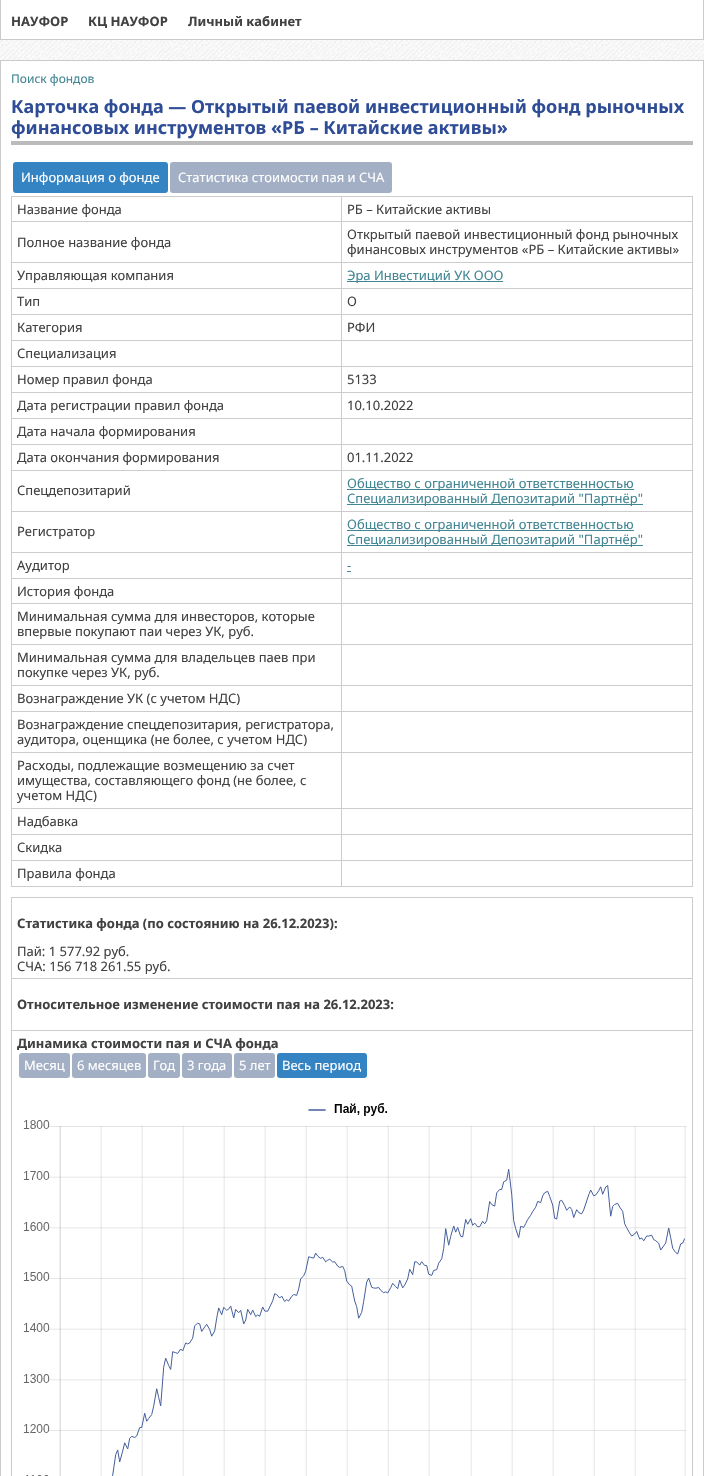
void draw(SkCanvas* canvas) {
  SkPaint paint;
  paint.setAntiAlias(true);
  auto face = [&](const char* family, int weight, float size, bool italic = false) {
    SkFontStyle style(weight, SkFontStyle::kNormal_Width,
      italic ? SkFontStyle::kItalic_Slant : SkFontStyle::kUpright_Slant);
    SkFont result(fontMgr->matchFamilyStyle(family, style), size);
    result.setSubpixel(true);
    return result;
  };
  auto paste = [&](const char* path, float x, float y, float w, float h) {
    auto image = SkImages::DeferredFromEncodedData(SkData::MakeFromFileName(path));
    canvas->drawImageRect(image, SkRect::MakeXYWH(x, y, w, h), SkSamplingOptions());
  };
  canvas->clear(0xffffffff);
  paste("img/1.png", 0, 40, 704, 20);
  paint.setStroke(true);
  paint.setStrokeWidth(1);
  paint.setColor(0xffcacaca);
  canvas->drawRect(SkRect::MakeXYWH(0.5f, -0.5f, 703, 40), paint);
  canvas->drawRect(SkRect::MakeXYWH(0.5f, 60.5f, 703, 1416), paint);
  paint.setStroke(false);
  paint.setColor(0xffbbbbbb);
  canvas->drawRect(SkRect::MakeXYWH(11, 141, 682, 4), paint);
  paint.setColor(0xff3483c3);
  canvas->drawRoundRect(SkRect::MakeXYWH(13, 162, 155, 31), 3, 3, paint);
  paint.setColor(0xffa2afc5);
  canvas->drawRoundRect(SkRect::MakeXYWH(170, 162, 222, 31), 3, 3, paint);
  {
    const struct { float x, y, w, h; SkColor color; } items[] = {
      {341, 196, 352, 1, 0xffcccccc},
      {341, 221, 352, 1, 0xffcccccc},
      {341, 262, 352, 1, 0xffcccccc},
      {341, 288, 352, 1, 0xffcccccc},
      {341, 314, 352, 1, 0xffcccccc},
      {341, 340, 352, 1, 0xffcccccc},
      {341, 366, 352, 1, 0xffcccccc},
      {341, 392, 352, 1, 0xffcccccc},
      {341, 418, 352, 1, 0xffcccccc},
      {341, 444, 352, 1, 0xffcccccc},
      {341, 470, 352, 1, 0xffcccccc},
      {341, 511, 352, 1, 0xffcccccc},
      {341, 552, 352, 1, 0xffcccccc},
      {341, 578, 352, 1, 0xffcccccc},
      {341, 603, 352, 1, 0xffcccccc},
      {341, 644, 352, 1, 0xffcccccc},
      {341, 685, 352, 1, 0xffcccccc},
      {341, 711, 352, 1, 0xffcccccc},
      {341, 752, 352, 1, 0xffcccccc},
      {341, 808, 352, 1, 0xffcccccc},
      {341, 834, 352, 1, 0xffcccccc},
      {341, 860, 352, 1, 0xffcccccc},
      {692, 860, 1, 27, 0xffcccccc},
      {341, 886, 352, 1, 0xffcccccc},
      {341, 860, 1, 27, 0xffcccccc},
      {11, 860, 331, 1, 0xffcccccc},
      {341, 834, 1, 27, 0xffcccccc},
      {11, 834, 331, 1, 0xffcccccc},
      {341, 808, 1, 27, 0xffcccccc},
      {11, 808, 331, 1, 0xffcccccc},
      {341, 752, 1, 57, 0xffcccccc},
      {11, 752, 331, 1, 0xffcccccc},
      {341, 711, 1, 42, 0xffcccccc},
      {11, 711, 331, 1, 0xffcccccc},
      {341, 685, 1, 27, 0xffcccccc},
      {11, 685, 331, 1, 0xffcccccc},
      {341, 644, 1, 42, 0xffcccccc},
      {11, 644, 331, 1, 0xffcccccc},
      {341, 603, 1, 42, 0xffcccccc},
      {11, 603, 331, 1, 0xffcccccc},
      {341, 578, 1, 26, 0xffcccccc},
      {11, 578, 331, 1, 0xffcccccc},
      {341, 552, 1, 27, 0xffcccccc},
      {11, 552, 331, 1, 0xffcccccc},
      {341, 511, 1, 42, 0xffcccccc},
      {11, 511, 331, 1, 0xffcccccc},
      {341, 470, 1, 42, 0xffcccccc},
      {11, 470, 331, 1, 0xffcccccc},
      {341, 444, 1, 27, 0xffcccccc},
      {11, 444, 331, 1, 0xffcccccc},
      {341, 418, 1, 27, 0xffcccccc},
      {11, 418, 331, 1, 0xffcccccc},
      {341, 392, 1, 27, 0xffcccccc},
      {11, 392, 331, 1, 0xffcccccc},
      {341, 366, 1, 27, 0xffcccccc},
      {11, 366, 331, 1, 0xffcccccc},
      {341, 340, 1, 27, 0xffcccccc},
      {11, 340, 331, 1, 0xffcccccc},
      {341, 314, 1, 27, 0xffcccccc},
      {11, 314, 331, 1, 0xffcccccc},
      {341, 288, 1, 27, 0xffcccccc},
      {11, 288, 331, 1, 0xffcccccc},
      {341, 262, 1, 27, 0xffcccccc},
      {11, 262, 331, 1, 0xffcccccc},
      {341, 221, 1, 42, 0xffcccccc},
      {11, 221, 331, 1, 0xffcccccc},
      {341, 196, 1, 26, 0xffcccccc},
      {11, 196, 331, 1, 0xffcccccc},
      {11, 886, 331, 1, 0xffcccccc},
      {11, 860, 1, 27, 0xffcccccc},
      {11, 834, 1, 27, 0xffcccccc},
      {11, 808, 1, 27, 0xffcccccc},
      {11, 752, 1, 57, 0xffcccccc},
      {11, 711, 1, 42, 0xffcccccc},
      {11, 685, 1, 27, 0xffcccccc},
      {11, 644, 1, 42, 0xffcccccc},
      {11, 603, 1, 42, 0xffcccccc},
      {11, 578, 1, 26, 0xffcccccc},
      {11, 552, 1, 27, 0xffcccccc},
      {11, 511, 1, 42, 0xffcccccc},
      {11, 470, 1, 42, 0xffcccccc},
      {11, 444, 1, 27, 0xffcccccc},
      {11, 418, 1, 27, 0xffcccccc},
      {11, 392, 1, 27, 0xffcccccc},
      {11, 366, 1, 27, 0xffcccccc},
      {11, 340, 1, 27, 0xffcccccc},
      {11, 314, 1, 27, 0xffcccccc},
      {11, 288, 1, 27, 0xffcccccc},
      {11, 262, 1, 27, 0xffcccccc},
      {11, 221, 1, 42, 0xffcccccc},
      {11, 196, 1, 26, 0xffcccccc},
      {692, 834, 1, 27, 0xffcccccc},
      {692, 808, 1, 27, 0xffcccccc},
      {692, 752, 1, 57, 0xffcccccc},
      {692, 711, 1, 42, 0xffcccccc},
      {692, 685, 1, 27, 0xffcccccc},
      {692, 644, 1, 42, 0xffcccccc},
      {692, 603, 1, 42, 0xffcccccc},
      {692, 578, 1, 26, 0xffcccccc},
      {692, 552, 1, 27, 0xffcccccc},
      {692, 511, 1, 42, 0xffcccccc},
      {692, 470, 1, 42, 0xffcccccc},
      {692, 444, 1, 27, 0xffcccccc},
      {692, 418, 1, 27, 0xffcccccc},
      {692, 392, 1, 27, 0xffcccccc},
      {692, 366, 1, 27, 0xffcccccc},
      {692, 340, 1, 27, 0xffcccccc},
      {692, 314, 1, 27, 0xffcccccc},
      {692, 288, 1, 27, 0xffcccccc},
      {692, 262, 1, 27, 0xffcccccc},
      {692, 221, 1, 42, 0xffcccccc},
      {692, 196, 1, 26, 0xffcccccc},
      {347, 281, 156, 1, 0xff428693},
      {347, 489, 287, 1, 0xff428693},
      {347, 504, 296, 1, 0xff428693},
      {347, 530, 287, 1, 0xff428693},
      {347, 545, 296, 1, 0xff428693},
      {347, 571, 4, 1, 0xff428693},
      {11, 897, 682, 1, 0xffcccccc},
      {11, 978, 682, 1, 0xffcccccc},
      {11, 1030, 682, 1, 0xffcccccc},
      {692, 1030, 1, 446, 0xffcccccc},
      {692, 978, 1, 53, 0xffcccccc},
      {692, 897, 1, 82, 0xffcccccc},
      {11, 1030, 1, 446, 0xffcccccc},
      {11, 978, 1, 53, 0xffcccccc},
      {11, 897, 1, 82, 0xffcccccc},
    };
    for (auto [x, y, w, h, color] : items) {
      paint.setColor(color);
      canvas->drawRect(SkRect::MakeXYWH(x, y, w, h), paint);
    }
  }
  paint.setColor(0xffa2afc5);
  canvas->drawRoundRect(SkRect::MakeXYWH(19, 1053, 51, 25), 3, 3, paint);
  canvas->drawRoundRect(SkRect::MakeXYWH(72, 1053, 74, 25), 3, 3, paint);
  canvas->drawRoundRect(SkRect::MakeXYWH(148, 1053, 32, 25), 3, 3, paint);
  canvas->drawRoundRect(SkRect::MakeXYWH(182, 1053, 50, 25), 3, 3, paint);
  canvas->drawRoundRect(SkRect::MakeXYWH(234, 1053, 41, 25), 3, 3, paint);
  paint.setColor(0xff3483c3);
  canvas->drawRoundRect(SkRect::MakeXYWH(277, 1053, 90, 25), 3, 3, paint);
  paste("img/2.png", 23, 1103, 663, 373);
  auto f0 = face("Noto Sans", 700, 13);
  paint.setColor(0xff414141);
  {
    const struct { const char* s; float x, y; } items[] = {
      {"НАУФОР", 11, 26},
      {"КЦ НАУФОР", 88, 26},
      {"Личный кабинет", 188, 26},
    };
    for (auto [s, x, y] : items) {
      canvas->drawString(s, x, y, f0, paint);
    }
  }
  auto f1 = face("Noto Sans", 400, 12);
  paint.setColor(0xff428693);
  canvas->drawString("Поиск фондов", 11, 83, f1, paint);
  auto f2 = face("Noto Sans", 700, 18);
  paint.setColor(0xff2f4d96);
  canvas->drawString("Карточка фонда — Открытый паевой инвестиционный фонд рыночных", 11, 113, f2, paint);
  canvas->drawString("финансовых инструментов «РБ – Китайские активы»", 11, 134, f2, paint);
  auto f3 = face("Noto Sans", 400, 13);
  paint.setColor(0xffffffff);
  canvas->drawString("Информация о фонде", 21, 182, f3, paint);
  canvas->drawString("Статистика стоимости пая и СЧА", 178, 182, f3, paint);
  paint.setColor(0xff414141);
  {
    const struct { const char* s; float x, y; } items[] = {
      {"Название фонда", 17, 214},
      {"РБ – Китайские активы", 347, 214},
      {"Полное название фонда", 17, 247},
      {"Открытый паевой инвестиционный фонд рыночных", 347, 239},
      {"финансовых инструментов «РБ – Китайские активы»", 347, 254},
      {"Управляющая компания", 17, 280},
    };
    for (auto [s, x, y] : items) {
      canvas->drawString(s, x, y, f3, paint);
    }
  }
  paint.setColor(0xff428693);
  canvas->drawString("Эра Инвестиций УК ООО", 347, 280, f3, paint);
  paint.setColor(0xff414141);
  {
    const struct { const char* s; float x, y; } items[] = {
      {"Тип", 17, 306},
      {"О", 347, 306},
      {"Категория", 17, 332},
      {"РФИ", 347, 332},
      {"Специализация", 17, 358},
      {"Номер правил фонда", 17, 384},
      {"5133", 347, 384},
      {"Дата регистрации правил фонда", 17, 410},
      {"10.10.2022", 347, 410},
      {"Дата начала формирования", 17, 436},
      {"Дата окончания формирования", 17, 462},
      {"01.11.2022", 347, 462},
      {"Спецдепозитарий", 17, 495},
    };
    for (auto [s, x, y] : items) {
      canvas->drawString(s, x, y, f3, paint);
    }
  }
  paint.setColor(0xff428693);
  canvas->drawString("Общество с ограниченной ответственностью", 347, 488, f3, paint);
  canvas->drawString("Специализированный Депозитарий \"Партнёр\"", 347, 503, f3, paint);
  paint.setColor(0xff414141);
  canvas->drawString("Регистратор", 17, 536, f3, paint);
  paint.setColor(0xff428693);
  canvas->drawString("Общество с ограниченной ответственностью", 347, 529, f3, paint);
  canvas->drawString("Специализированный Депозитарий \"Партнёр\"", 347, 544, f3, paint);
  paint.setColor(0xff414141);
  canvas->drawString("Аудитор", 17, 570, f3, paint);
  paint.setColor(0xff428693);
  canvas->drawString("-", 347, 570, f3, paint);
  paint.setColor(0xff414141);
  {
    const struct { const char* s; float x, y; } items[] = {
      {"История фонда", 17, 596},
      {"Минимальная сумма для инвесторов, которые", 17, 621},
      {"впервые покупают паи через УК, руб.", 17, 636},
      {"Минимальная сумма для владельцев паев при", 17, 662},
      {"покупке через УК, руб.", 17, 677},
      {"Вознаграждение УК (с учетом НДС)", 17, 703},
      {"Вознаграждение спецдепозитария, регистратора,", 17, 729},
      {"аудитора, оценщика (не более, с учетом НДС)", 17, 744},
      {"Расходы, подлежащие возмещению за счет", 17, 770},
      {"имущества, составляющего фонд (не более, с", 17, 785},
      {"учетом НДС)", 17, 800},
      {"Надбавка", 17, 826},
      {"Скидка", 17, 852},
      {"Правила фонда", 17, 878},
    };
    for (auto [s, x, y] : items) {
      canvas->drawString(s, x, y, f3, paint);
    }
  }
  canvas->drawString("Статистика фонда (по состоянию на 26.12.2023):", 17, 928, f0, paint);
  canvas->drawString("Пай: 1 577.92 руб.", 17, 956, f3, paint);
  canvas->drawString("СЧА: 156 718 261.55 руб.", 17, 971, f3, paint);
  canvas->drawString("Относительное изменение стоимости пая на 26.12.2023:", 17, 1009, f0, paint);
  canvas->drawString("Динамика стоимости пая и СЧА фонда", 17, 1048, f0, paint);
  paint.setColor(0xffffffff);
  {
    const struct { const char* s; float x, y; } items[] = {
      {"Месяц", 24, 1070},
      {"6 месяцев", 77, 1070},
      {"Год", 153, 1070},
      {"3 года", 187, 1070},
      {"5 лет", 239, 1070},
      {"Весь период", 282, 1070},
    };
    for (auto [s, x, y] : items) {
      canvas->drawString(s, x, y, f3, paint);
    }
  }
}
